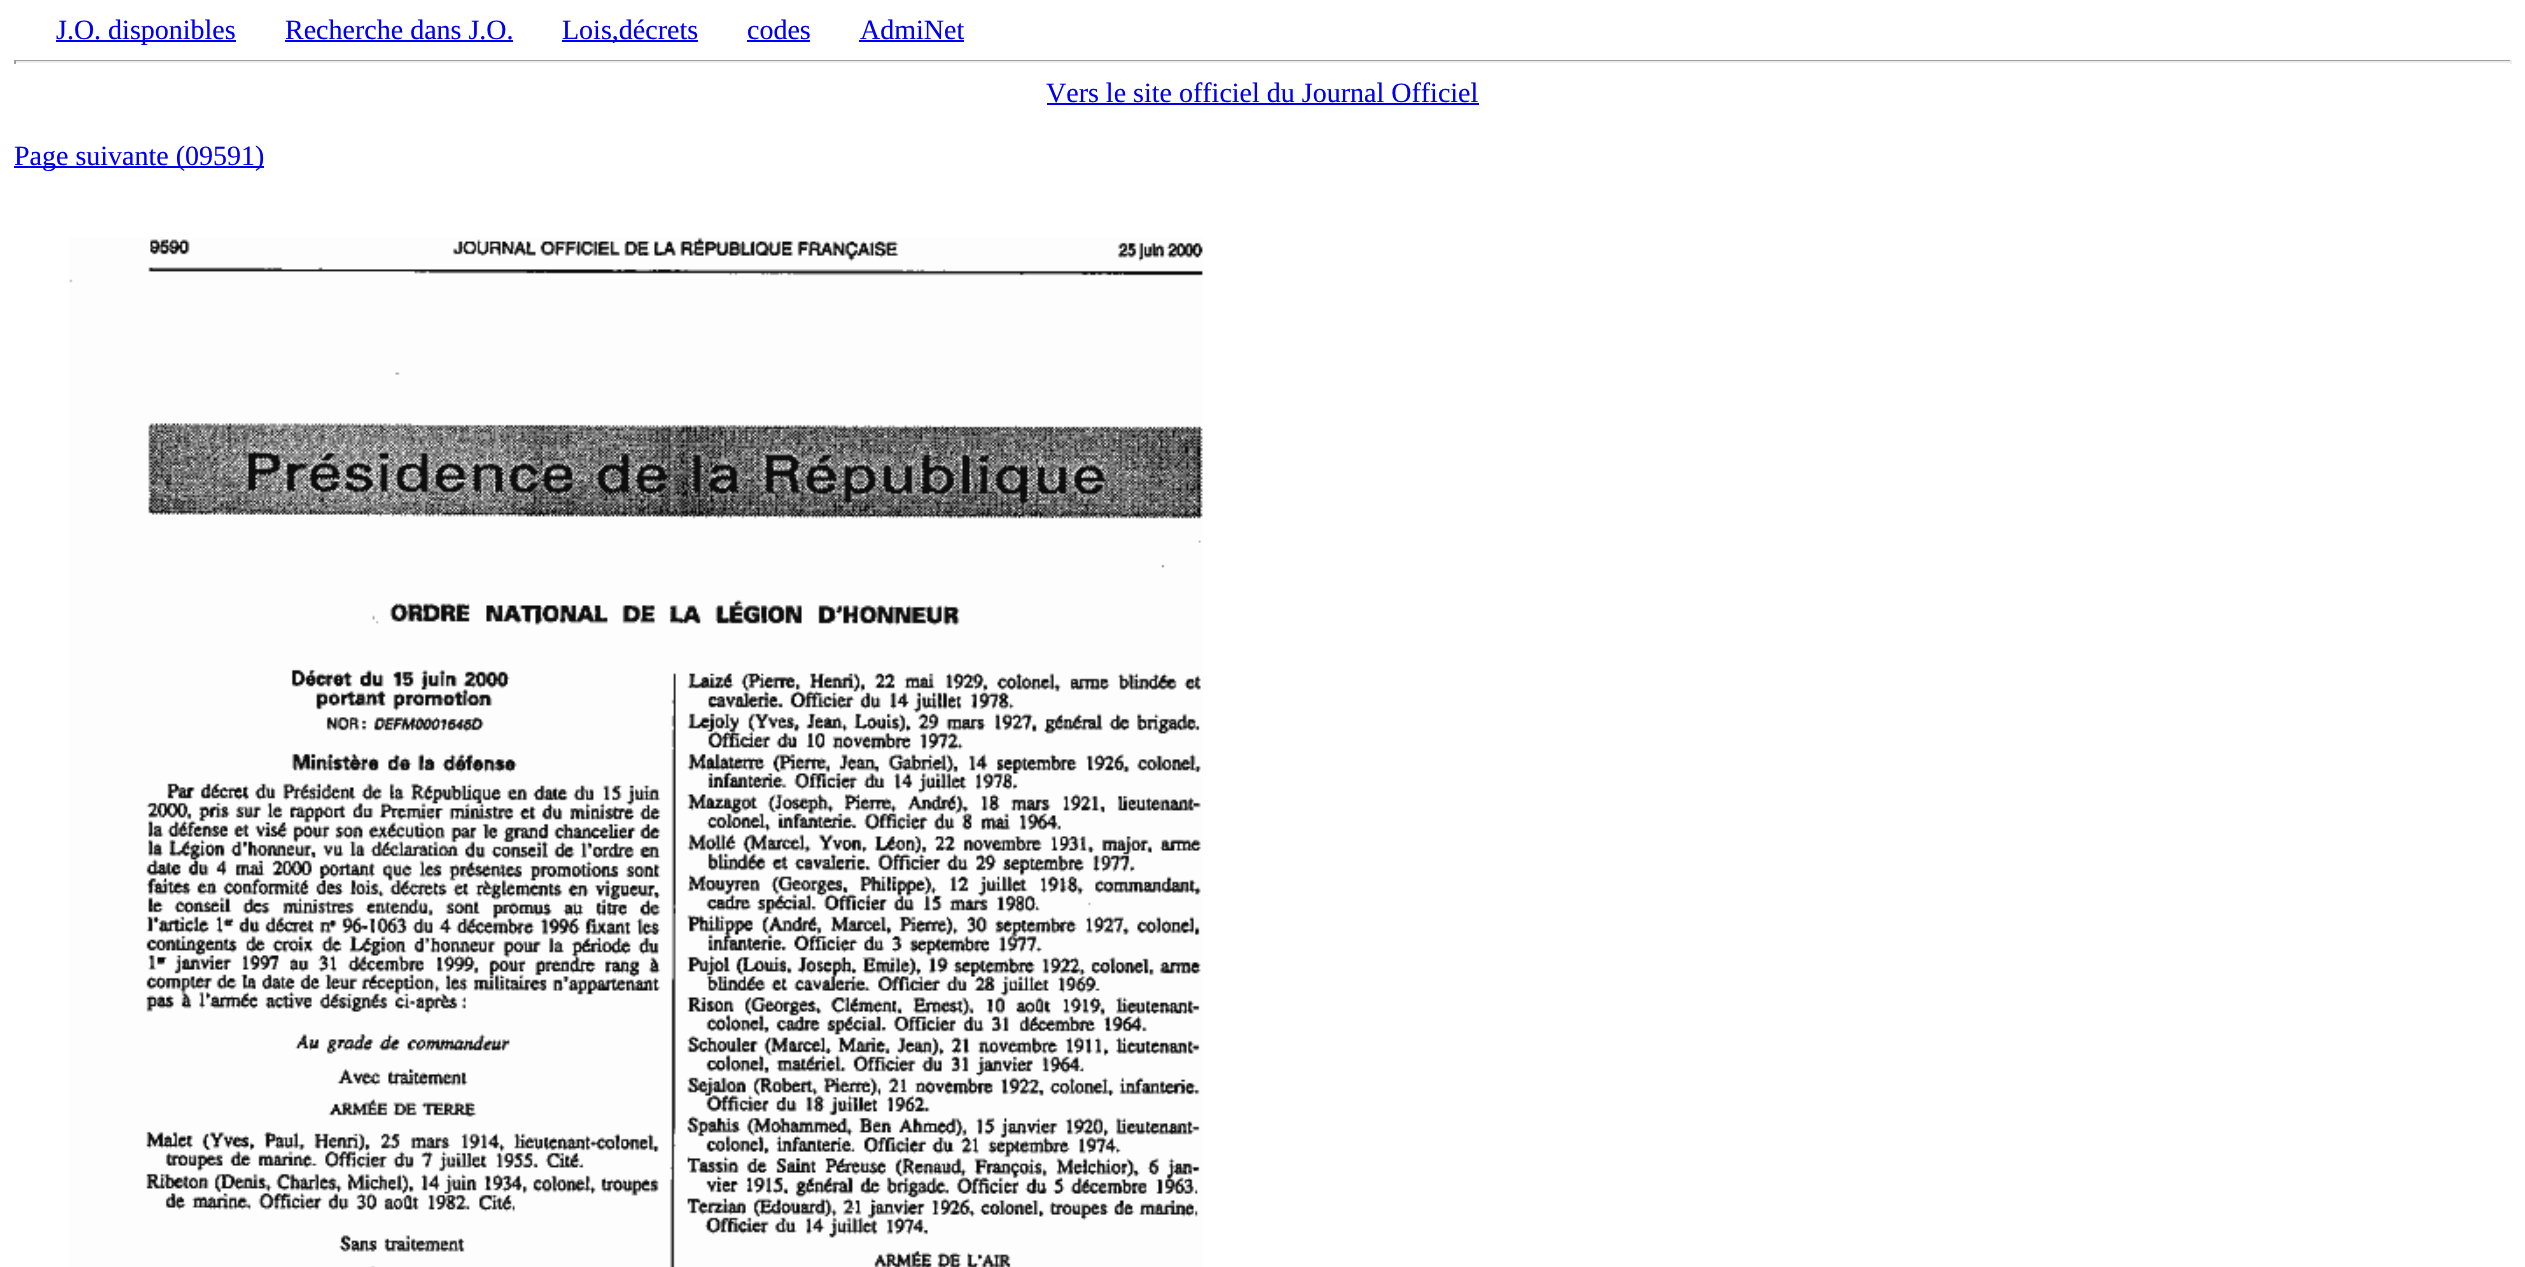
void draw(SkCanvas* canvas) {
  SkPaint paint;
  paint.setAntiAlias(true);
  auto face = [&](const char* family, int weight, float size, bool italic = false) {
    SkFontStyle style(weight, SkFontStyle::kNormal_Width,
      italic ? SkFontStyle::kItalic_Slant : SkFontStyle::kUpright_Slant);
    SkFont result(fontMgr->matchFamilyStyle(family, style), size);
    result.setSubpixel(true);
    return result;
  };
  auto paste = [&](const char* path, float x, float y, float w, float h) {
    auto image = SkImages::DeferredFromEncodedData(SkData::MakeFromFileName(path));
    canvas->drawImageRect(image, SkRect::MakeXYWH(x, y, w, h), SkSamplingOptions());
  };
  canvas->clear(0xffffffff);
  {
    const struct { float x, y, w, h; SkColor color; } items[] = {
      {56, 40, 180, 2, 0xff0000ee},
      {285, 40, 228, 2, 0xff0000ee},
      {562, 40, 136, 2, 0xff0000ee},
      {747, 40, 63, 2, 0xff0000ee},
      {859, 40, 105, 2, 0xff0000ee},
      {14, 60, 2497, 1, 0xff9f9f9f},
      {2510, 60, 2, 4, 0xffeeeeee},
      {14, 61, 2497, 2, 0xffeeeeee},
      {14, 60, 2, 4, 0xff9f9f9f},
      {1047, 103, 432, 2, 0xff0000ee},
      {14, 166, 250, 2, 0xff0000ee},
    };
    for (auto [x, y, w, h, color] : items) {
      paint.setColor(color);
      canvas->drawRect(SkRect::MakeXYWH(x, y, w, h), paint);
    }
  }
  paste("img/1.png", 69, 237, 1134, 1030);
  auto f0 = face("Liberation Serif", 400, 28);
  {
    const struct { const char* s; float x, y; } items[] = {
      {"J.O. disponibles", 56, 39},
      {"Recherche dans J.O.", 285, 39},
      {"Lois,décrets", 562, 39},
      {"codes", 747, 39},
      {"AdmiNet", 860, 39},
      {"Vers le site officiel du Journal Officiel", 1046, 102},
      {"Page suivante (09591)", 14, 165},
    };
    for (auto [s, x, y] : items) {
      canvas->drawString(s, x, y, f0, paint);
    }
  }
}
